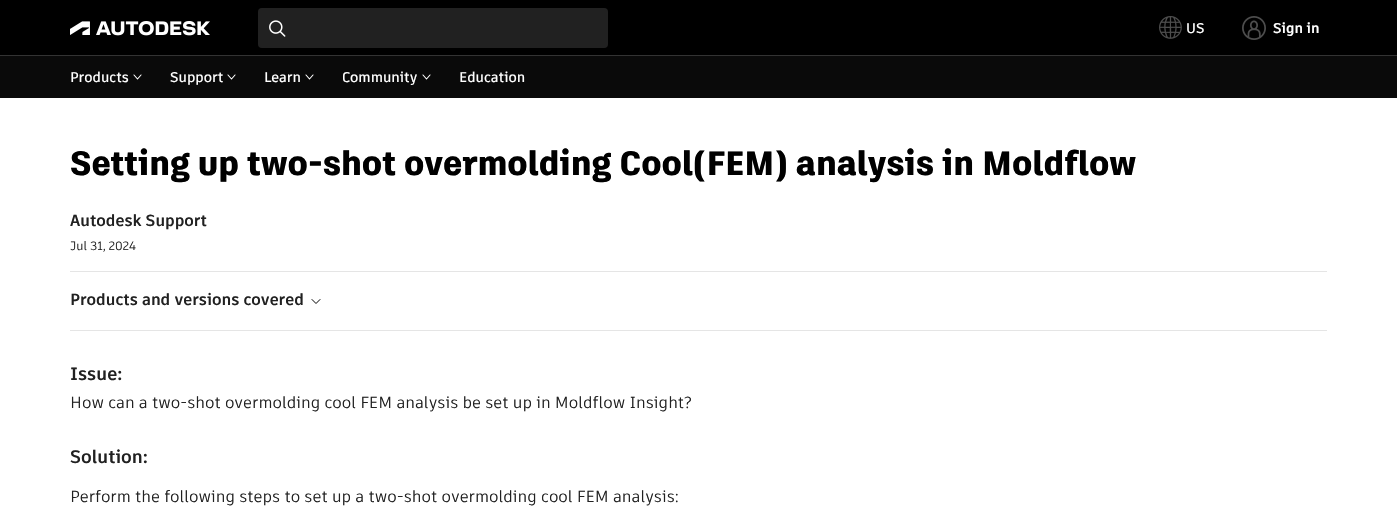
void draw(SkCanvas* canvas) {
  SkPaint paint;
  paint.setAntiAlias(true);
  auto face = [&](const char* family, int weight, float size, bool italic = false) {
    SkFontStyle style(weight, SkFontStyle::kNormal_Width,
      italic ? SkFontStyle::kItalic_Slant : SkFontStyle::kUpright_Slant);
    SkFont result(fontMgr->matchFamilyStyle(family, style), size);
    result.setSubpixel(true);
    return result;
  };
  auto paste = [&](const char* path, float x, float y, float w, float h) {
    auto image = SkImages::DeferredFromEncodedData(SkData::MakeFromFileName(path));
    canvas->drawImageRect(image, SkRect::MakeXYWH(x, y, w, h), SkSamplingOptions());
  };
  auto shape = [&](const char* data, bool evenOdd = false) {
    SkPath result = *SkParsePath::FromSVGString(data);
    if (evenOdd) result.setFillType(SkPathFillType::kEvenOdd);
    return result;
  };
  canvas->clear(0xffffffff);
  paint.setColor(0xff000000);
  canvas->drawRect(SkRect::MakeXYWH(0, 0, 1397, 55), paint);
  paint.setColor(0xff0a0a0a);
  canvas->drawRect(SkRect::MakeXYWH(0, 56, 1397, 42), paint);
  paste("img/1.png", 70, 21, 140, 15);
  paint.setColor(0xff212121);
  canvas->drawRoundRect(SkRect::MakeXYWH(258, 8, 350, 40), 4, 4, paint);
  paste("img/2.png", 269, 20, 17, 17);
  paste("img/3.png", 1159, 16, 23, 23);
  paste("img/4.png", 1242, 16, 24, 24);
  paint.setColor(0xff333333);
  canvas->drawRect(SkRect::MakeXYWH(0, 55, 1397, 1), paint);
  paint.setStroke(true);
  paint.setStrokeWidth(1.1f);
  paint.setStrokeCap(SkPaint::kRound_Cap);
  paint.setStrokeJoin(SkPaint::kRound_Join);
  paint.setColor(0xffffffff);
  canvas->drawPath(shape("M141 75L137.5 79L134 75"), paint);
  canvas->drawPath(shape("M235 75L231.5 79L228 75"), paint);
  canvas->drawPath(shape("M313 75L309.5 79L306 75"), paint);
  canvas->drawPath(shape("M430 75L426.5 79L423 75"), paint);
  paint.setStroke(false);
  paint.setColor(0xffe5e5e5);
  canvas->drawRect(SkRect::MakeXYWH(70, 271, 1257, 1), paint);
  paint.setStroke(true);
  paint.setStrokeWidth(1);
  paint.setColor(0xff000000);
  canvas->drawPath(shape("M320 299.5L316 303.5L312 299.5"), paint);
  paint.setStroke(false);
  paint.setColor(0xffe5e5e5);
  canvas->drawRect(SkRect::MakeXYWH(70, 330, 1257, 1), paint);
  auto f0 = face("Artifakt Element", 600, 14);
  paint.setColor(0xffffffff);
  canvas->drawString("US", 1186, 33, f0, paint);
  auto f1 = face("Artifakt Element", 700, 14);
  canvas->drawString("Sign in", 1273, 33, f1, paint);
  {
    const struct { const char* s; float x, y; } items[] = {
      {"Products", 70, 82},
      {"Support", 170, 82},
      {"Learn", 264, 82},
      {"Community", 342, 82},
      {"Education", 459, 82},
    };
    for (auto [s, x, y] : items) {
      canvas->drawString(s, x, y, f0, paint);
    }
  }
  auto f2 = face("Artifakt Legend", 800, 33.6f);
  paint.setColor(0xff000000);
  canvas->drawString("Setting up two-shot overmolding Cool(FEM) analysis in Moldflow", 70, 175, f2, paint);
  auto f3 = face("Artifakt Element", 700, 16);
  paint.setColor(0xff212121);
  canvas->drawString("Autodesk Support", 70, 226, f3, paint);
  auto f4 = face("Artifakt Element", 400, 12);
  canvas->drawString("Jul 31, 2024", 70, 250, f4, paint);
  canvas->drawString("Products and versions covered", 70, 305, f3, paint);
  auto f5 = face("Artifakt Element", 700, 18);
  canvas->drawString("Issue:", 70, 380, f5, paint);
  auto f6 = face("Artifakt Element", 400, 16);
  canvas->drawString("How can a two-shot overmolding cool FEM analysis be set up in Moldflow Insight?", 70, 408, f6, paint);
  canvas->drawString("Solution:", 70, 463, f5, paint);
  canvas->drawString("Perform the following steps to set up a two-shot overmolding cool FEM analysis:", 70, 502, f6, paint);
}
